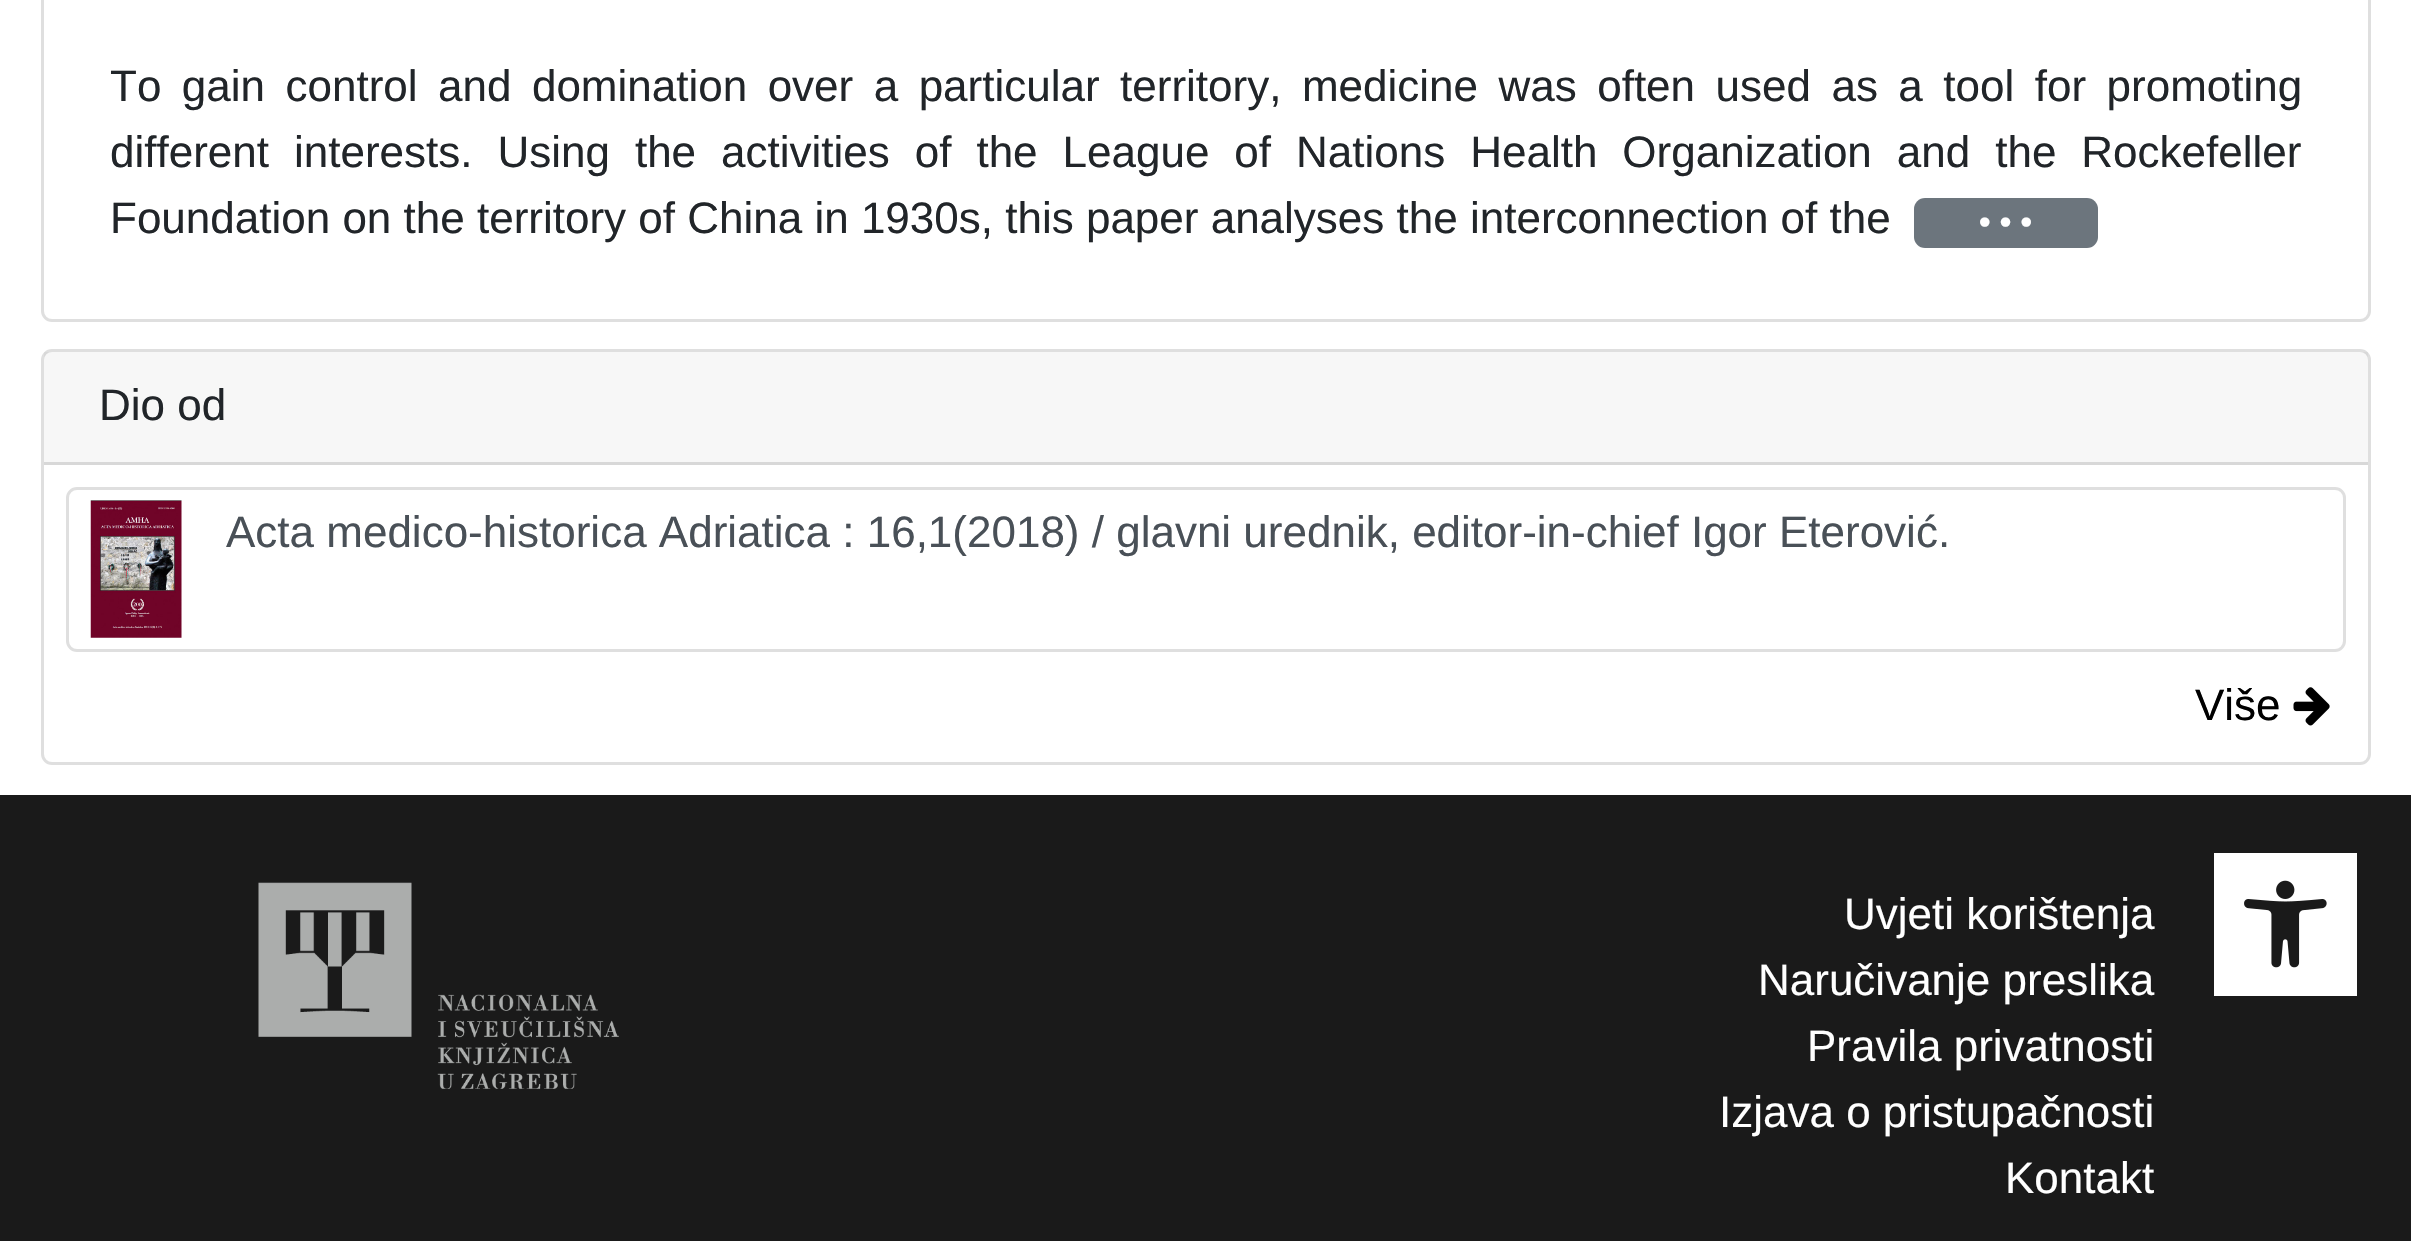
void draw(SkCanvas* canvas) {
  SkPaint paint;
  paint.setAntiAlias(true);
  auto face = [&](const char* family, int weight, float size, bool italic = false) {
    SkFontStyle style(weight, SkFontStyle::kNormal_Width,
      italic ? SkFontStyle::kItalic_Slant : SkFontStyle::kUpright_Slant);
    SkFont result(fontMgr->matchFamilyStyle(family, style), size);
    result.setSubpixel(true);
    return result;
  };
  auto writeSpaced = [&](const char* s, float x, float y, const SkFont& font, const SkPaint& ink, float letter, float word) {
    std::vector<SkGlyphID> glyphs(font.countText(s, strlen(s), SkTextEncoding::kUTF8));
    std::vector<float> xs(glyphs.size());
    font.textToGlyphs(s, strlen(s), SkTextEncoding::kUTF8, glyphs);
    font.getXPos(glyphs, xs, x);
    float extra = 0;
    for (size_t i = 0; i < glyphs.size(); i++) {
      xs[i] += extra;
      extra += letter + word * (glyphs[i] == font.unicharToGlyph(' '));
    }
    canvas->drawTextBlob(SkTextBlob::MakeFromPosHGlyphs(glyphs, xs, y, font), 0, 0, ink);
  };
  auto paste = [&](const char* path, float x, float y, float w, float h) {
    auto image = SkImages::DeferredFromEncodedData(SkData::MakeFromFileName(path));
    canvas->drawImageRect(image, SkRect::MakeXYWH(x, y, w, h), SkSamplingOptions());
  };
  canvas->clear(0xffffffff);
  paint.setStroke(true);
  paint.setStrokeWidth(3);
  paint.setColor(0xffdfdfdf);
  canvas->drawRoundRect(SkRect::MakeXYWH(42.5f, -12.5f, 2327, 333), 9.5f, 9.5f, paint);
  paint.setStroke(false);
  paint.setColor(0xff6c757d);
  canvas->drawRoundRect(SkRect::MakeXYWH(1914, 198, 184, 50), 11, 11, paint);
  paint.setStroke(true);
  paint.setColor(0xffdfdfdf);
  canvas->drawRoundRect(SkRect::MakeXYWH(42.5f, 350.5f, 2327, 413), 9.5f, 9.5f, paint);
  paint.setStroke(false);
  paint.setColor(0x08000000);
  canvas->drawRect(SkRect::MakeXYWH(44, 352, 2324, 110), paint);
  paint.setColor(0xffd8d8d8);
  canvas->drawRect(SkRect::MakeXYWH(44, 462, 2324, 3), paint);
  paint.setStroke(true);
  paint.setColor(0xffdfdfdf);
  canvas->drawRoundRect(SkRect::MakeXYWH(67.5f, 488.5f, 2277, 162), 9.5f, 9.5f, paint);
  paste("img/1.png", 90, 500, 92, 138);
  paste("img/2.png", 2293, 687, 37, 39);
  paint.setStroke(false);
  paint.setColor(0xff1a1a1a);
  canvas->drawRect(SkRect::MakeXYWH(0, 795, 2411, 446), paint);
  paste("img/3.png", 258, 882, 361, 207);
  paint.setColor(0xffffffff);
  canvas->drawRect(SkRect::MakeXYWH(2214, 853, 143, 143), paint);
  paste("img/4.png", 2244, 880, 83, 88);
  auto f0 = face("Liberation Sans", 400, 44);
  paint.setColor(0xff212529);
  writeSpaced("To gain control and domination over a particular territory, medicine was often used as a tool for promoting", 110, 101, f0, paint, 0, 8.25f);
  writeSpaced("different interests. Using the activities of the League of Nations Health Organization and the Rockefeller", 110, 167, f0, paint, 0, 12.75f);
  canvas->drawString("Foundation on the territory of China in 1930s, this paper analyses the interconnection of the", 110, 233, f0, paint);
  auto f1 = face("Liberation Sans", 700, 33);
  paint.setColor(0xffffffff);
  canvas->drawString("• • •", 1979, 233, f1, paint);
  paint.setColor(0xff212529);
  canvas->drawString("Dio od", 99, 420, f0, paint);
  paint.setColor(0xff495057);
  canvas->drawString("Acta medico-historica Adriatica : 16,1(2018) / glavni urednik, editor-in-chief Igor Eterović.", 226, 547, f0, paint);
  paint.setColor(0xff000000);
  canvas->drawString("Više", 2195, 720, f0, paint);
  paint.setColor(0xffffffff);
  {
    const struct { const char* s; float x, y; } items[] = {
      {"Uvjeti korištenja", 1844, 929},
      {"Naručivanje preslika", 1758, 995},
      {"Pravila privatnosti", 1807, 1061},
      {"Izjava o pristupačnosti", 1719, 1127},
      {"Kontakt", 2005, 1193},
    };
    for (auto [s, x, y] : items) {
      canvas->drawString(s, x, y, f0, paint);
    }
  }
}
